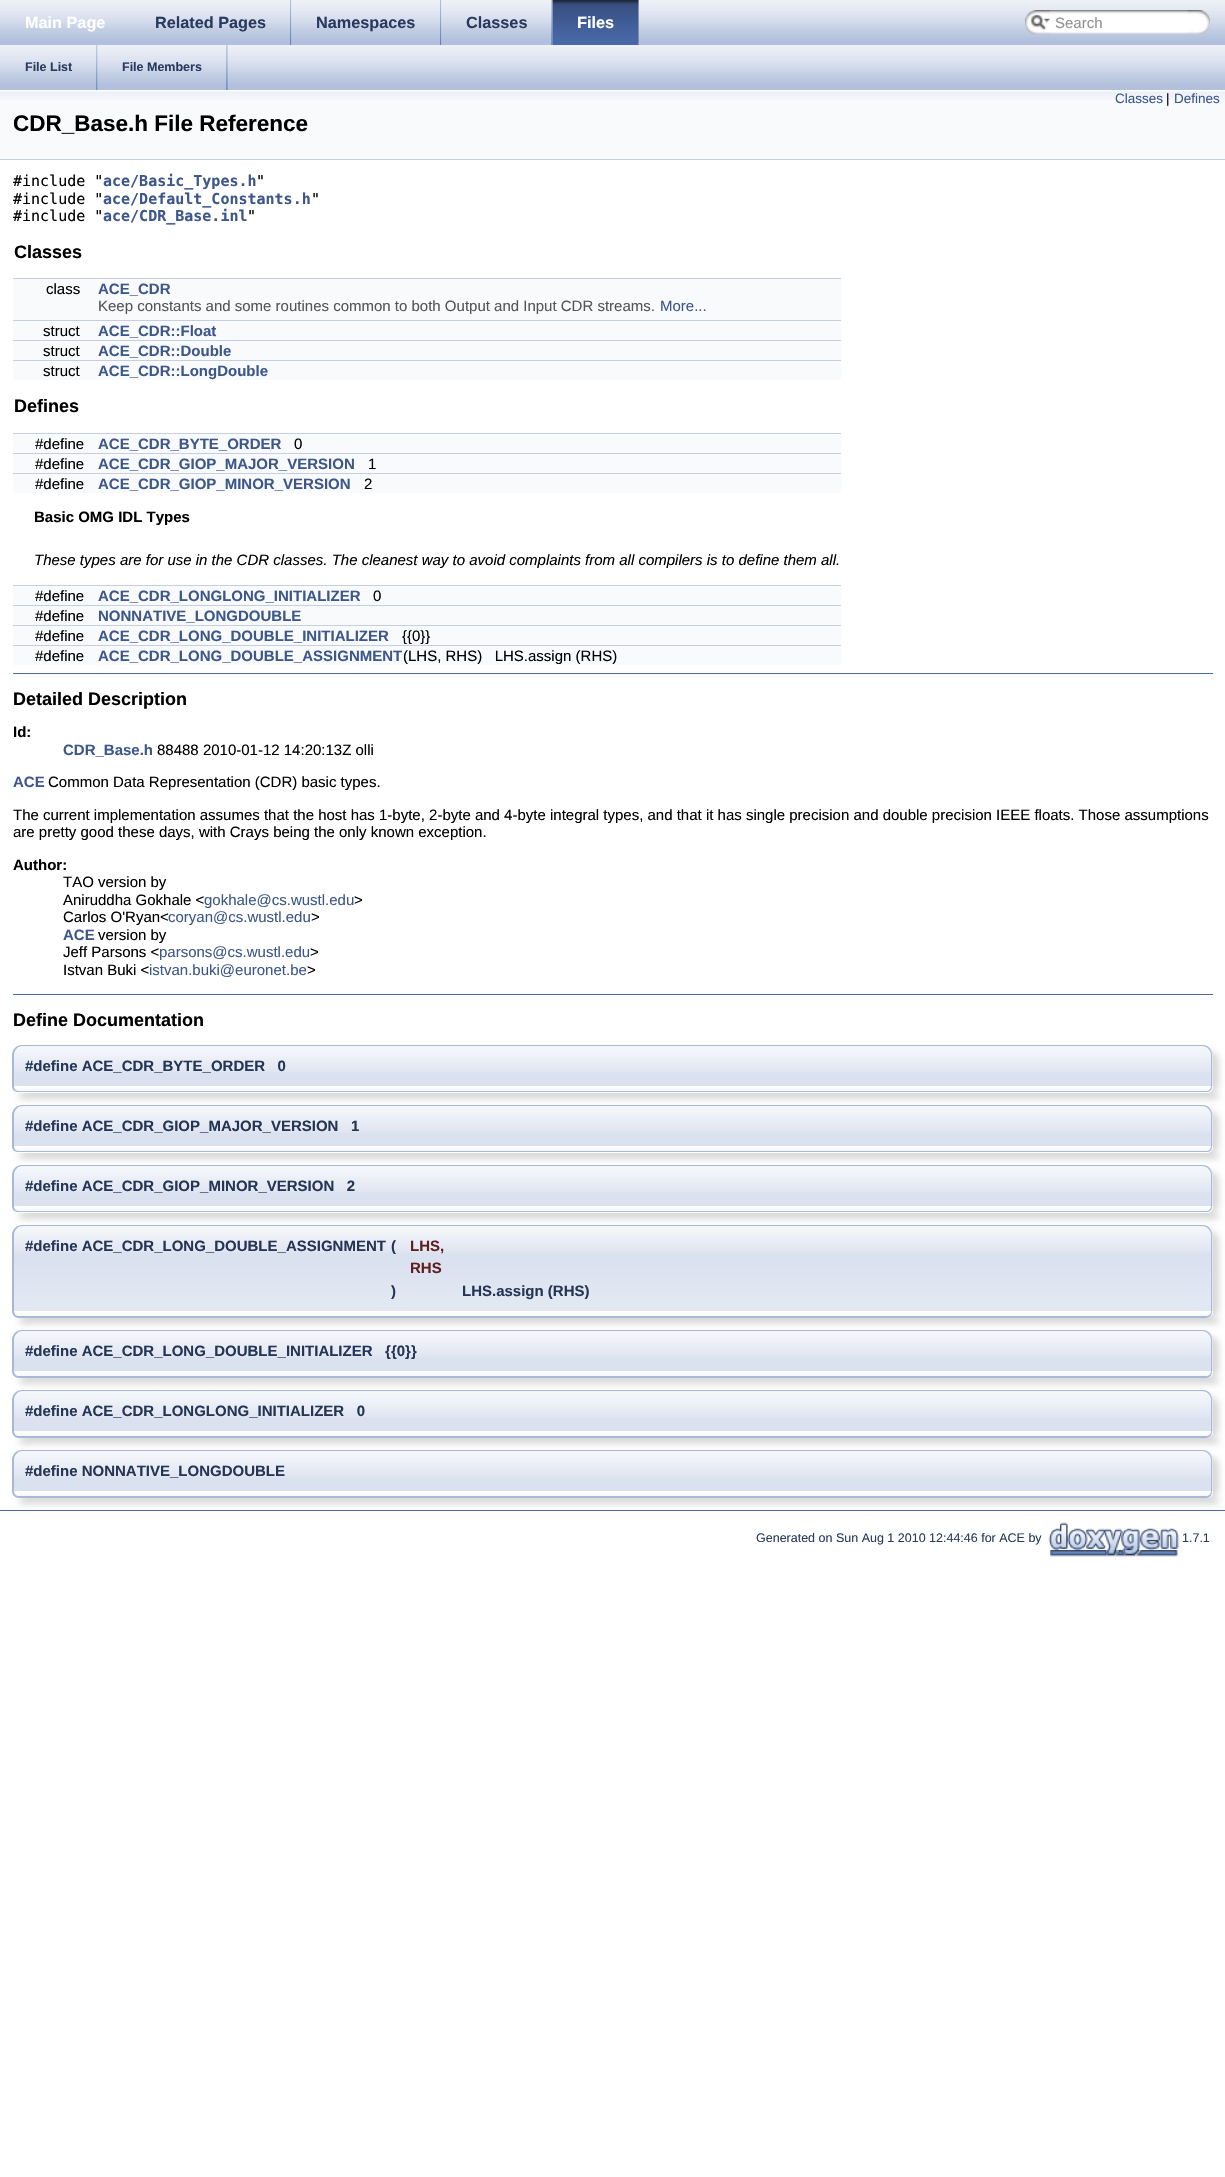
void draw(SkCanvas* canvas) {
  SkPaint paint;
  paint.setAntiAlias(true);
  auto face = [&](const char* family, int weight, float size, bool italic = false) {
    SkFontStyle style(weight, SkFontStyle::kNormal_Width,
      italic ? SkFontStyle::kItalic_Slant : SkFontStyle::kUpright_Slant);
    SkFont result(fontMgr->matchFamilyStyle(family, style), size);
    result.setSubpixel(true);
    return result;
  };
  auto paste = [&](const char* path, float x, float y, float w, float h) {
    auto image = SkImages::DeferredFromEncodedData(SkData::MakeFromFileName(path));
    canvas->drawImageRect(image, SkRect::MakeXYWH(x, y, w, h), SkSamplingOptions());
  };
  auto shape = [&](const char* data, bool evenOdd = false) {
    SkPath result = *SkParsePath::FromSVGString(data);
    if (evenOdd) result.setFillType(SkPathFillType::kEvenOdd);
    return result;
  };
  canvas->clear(0xffffffff);
  paste("img/1.png", 0, 0, 1225, 45);
  paste("img/2.png", 290, 0, 2, 45);
  paste("img/3.png", 291, 0, 1, 45);
  paste("img/2.png", 440, 0, 2, 45);
  paste("img/3.png", 441, 0, 1, 45);
  paste("img/4.png", 551, 0, 2, 45);
  paste("img/5.png", 552, 0, 1, 45);
  paste("img/6.png", 552, 0, 87, 45);
  paste("img/7.png", 638, 0, 1, 45);
  paste("img/8.png", 1025, 10, 25, 24);
  paste("img/9.png", 1031, 14, 19, 16);
  paste("img/10.png", 1050, 10, 153, 24);
  paste("img/11.png", 1187, 10, 23, 24);
  paste("img/1.png", 0, 45, 1225, 45);
  paste("img/4.png", 96, 45, 2, 45);
  paste("img/5.png", 97, 45, 1, 45);
  paste("img/4.png", 226, 45, 2, 45);
  paint.setColor(0xfff9fafc);
  canvas->drawRect(SkRect::MakeXYWH(0, 100, 1225, 59), paint);
  paste("img/12.png", 0, 90, 1225, 10);
  {
    const struct { float x, y, w, h; SkColor color; } items[] = {
      {0, 159, 1225, 1, 0xffc4cfe5},
      {13, 279, 828, 19, 0xfff9fafc},
      {13, 278, 828, 1, 0xffc4cfe5},
      {13, 298, 828, 22, 0xfff9fafc},
      {13, 321, 828, 19, 0xfff9fafc},
      {13, 320, 828, 1, 0xffc4cfe5},
      {13, 341, 828, 19, 0xfff9fafc},
      {13, 340, 828, 1, 0xffc4cfe5},
      {13, 361, 828, 19, 0xfff9fafc},
      {13, 360, 828, 1, 0xffc4cfe5},
      {13, 434, 828, 19, 0xfff9fafc},
      {13, 433, 828, 1, 0xffc4cfe5},
      {13, 454, 828, 19, 0xfff9fafc},
      {13, 453, 828, 1, 0xffc4cfe5},
      {13, 474, 828, 19, 0xfff9fafc},
      {13, 473, 828, 1, 0xffc4cfe5},
      {13, 586, 828, 19, 0xfff9fafc},
      {13, 585, 828, 1, 0xffc4cfe5},
      {13, 606, 828, 19, 0xfff9fafc},
      {13, 605, 828, 1, 0xffc4cfe5},
      {13, 626, 828, 19, 0xfff9fafc},
      {13, 625, 828, 1, 0xffc4cfe5},
      {13, 646, 828, 19, 0xfff9fafc},
      {13, 645, 828, 1, 0xffc4cfe5},
      {13, 673, 1200, 1, 0xff4a6aaa},
      {13, 994, 1200, 1, 0xff4a6aaa},
    };
    for (auto [x, y, w, h, color] : items) {
      paint.setColor(color);
      canvas->drawRect(SkRect::MakeXYWH(x, y, w, h), paint);
    }
  }
  paint.setColor(0x26000000);
  paint.setMaskFilter(SkMaskFilter::MakeBlur(kNormal_SkBlurStyle, 3));
  canvas->drawRoundRect(SkRect::MakeXYWH(19, 1051, 1200, 42), 10, 10, paint);
  paint.setMaskFilter(nullptr);
  paint.setColor(0xffe2e8f2);
  canvas->drawPath(shape("M23 1045H1203C1208.5 1045 1213 1049.5 1213 1055V1086H13V1055C13 1049.5 17.5 1045 23 1045Z"), paint);
  paste("img/13.png", 12, 1046, 1200, 40);
  paint.setColor(0xffa8b8d9);
  canvas->drawPath(shape("M22 1045H1202C1208 1045 1212 1049 1212 1055V1086H12V1055C12 1049 17 1045 22 1045ZM22 1046H1202C1207 1046 1211 1050 1211 1055V1086H14V1055C14 1050 18 1046 22 1046Z", true), paint);
  paint.setColor(0x26000000);
  paint.setMaskFilter(SkMaskFilter::MakeBlur(kNormal_SkBlurStyle, 3));
  canvas->drawRoundRect(SkRect::MakeXYWH(19, 1093, 1200, 6), 6, 6, paint);
  paint.setMaskFilter(nullptr);
  canvas->save();
  canvas->clipPath(shape("M13 1086H1213V1087C1213 1090.5 1210.5 1093 1207 1093H19C15.5 1093 13 1090.5 13 1087Z"), true);
  {
    const SkColor colors[] = {0xffffffff, 0xfff7f8fb, 0xffeef1f7};
    const float stops[] = {0, 0.95f, 1};
    const SkPoint ends[] = {{613, 1086}, {613, 1091}};
    paint.setShader(SkGradientShader::MakeLinear(ends, colors, stops, 3, SkTileMode::kClamp));
    paint.setAlpha(255);
  }
  canvas->drawRect(SkRect::MakeXYWH(13, 1086, 1200, 5), paint);
  {
    const SkColor colors[] = {0xffffffff, 0xfff7f8fb, 0xffeef1f7};
    const float stops[] = {0, 0.95f, 1};
    const SkPoint ends[] = {{613, 1091}, {613, 1096}};
    paint.setShader(SkGradientShader::MakeLinear(ends, colors, stops, 3, SkTileMode::kClamp));
    paint.setAlpha(255);
  }
  canvas->drawRect(SkRect::MakeXYWH(13, 1091, 1200, 2), paint);
  canvas->restore();
  paint.setShader(nullptr);
  paint.setColor(0xffa8b8d9);
  canvas->drawPath(shape("M12 1086H1212C1212 1090 1210 1092 1206 1092H19C15 1092 12 1090 12 1086ZM14 1086H1211C1211 1089 1209 1091 1206 1091H19C16 1091 14 1089 14 1086Z", true), paint);
  paint.setColor(0x26000000);
  paint.setMaskFilter(SkMaskFilter::MakeBlur(kNormal_SkBlurStyle, 3));
  canvas->drawRoundRect(SkRect::MakeXYWH(19, 1111, 1200, 42), 10, 10, paint);
  paint.setMaskFilter(nullptr);
  paint.setColor(0xffe2e8f2);
  canvas->drawPath(shape("M23 1105H1203C1208.5 1105 1213 1109.5 1213 1115V1146H13V1115C13 1109.5 17.5 1105 23 1105Z"), paint);
  paste("img/14.png", 12, 1106, 1200, 40);
  paint.setColor(0xffa8b8d9);
  canvas->drawPath(shape("M22 1105H1202C1208 1105 1212 1109 1212 1115V1146H12V1115C12 1109 17 1105 22 1105ZM22 1106H1202C1207 1106 1211 1110 1211 1115V1146H14V1115C14 1110 18 1106 22 1106Z", true), paint);
  paint.setColor(0x26000000);
  paint.setMaskFilter(SkMaskFilter::MakeBlur(kNormal_SkBlurStyle, 3));
  canvas->drawRoundRect(SkRect::MakeXYWH(19, 1153, 1200, 6), 6, 6, paint);
  paint.setMaskFilter(nullptr);
  canvas->save();
  canvas->clipPath(shape("M13 1146H1213V1147C1213 1150.5 1210.5 1153 1207 1153H19C15.5 1153 13 1150.5 13 1147Z"), true);
  {
    const SkColor colors[] = {0xffffffff, 0xfff7f8fb, 0xffeef1f7};
    const float stops[] = {0, 0.95f, 1};
    const SkPoint ends[] = {{613, 1146}, {613, 1151}};
    paint.setShader(SkGradientShader::MakeLinear(ends, colors, stops, 3, SkTileMode::kClamp));
    paint.setAlpha(255);
  }
  canvas->drawRect(SkRect::MakeXYWH(13, 1146, 1200, 5), paint);
  {
    const SkColor colors[] = {0xffffffff, 0xfff7f8fb, 0xffeef1f7};
    const float stops[] = {0, 0.95f, 1};
    const SkPoint ends[] = {{613, 1151}, {613, 1156}};
    paint.setShader(SkGradientShader::MakeLinear(ends, colors, stops, 3, SkTileMode::kClamp));
    paint.setAlpha(255);
  }
  canvas->drawRect(SkRect::MakeXYWH(13, 1151, 1200, 2), paint);
  canvas->restore();
  paint.setShader(nullptr);
  paint.setColor(0xffa8b8d9);
  canvas->drawPath(shape("M12 1146H1212C1212 1150 1210 1152 1206 1152H19C15 1152 12 1150 12 1146ZM14 1146H1211C1211 1149 1209 1151 1206 1151H19C16 1151 14 1149 14 1146Z", true), paint);
  paint.setColor(0x26000000);
  paint.setMaskFilter(SkMaskFilter::MakeBlur(kNormal_SkBlurStyle, 3));
  canvas->drawRoundRect(SkRect::MakeXYWH(19, 1171, 1200, 42), 10, 10, paint);
  paint.setMaskFilter(nullptr);
  paint.setColor(0xffe2e8f2);
  canvas->drawPath(shape("M23 1165H1203C1208.5 1165 1213 1169.5 1213 1175V1206H13V1175C13 1169.5 17.5 1165 23 1165Z"), paint);
  paste("img/14.png", 12, 1166, 1200, 40);
  paint.setColor(0xffa8b8d9);
  canvas->drawPath(shape("M22 1165H1202C1208 1165 1212 1169 1212 1175V1206H12V1175C12 1169 17 1165 22 1165ZM22 1166H1202C1207 1166 1211 1170 1211 1175V1206H14V1175C14 1170 18 1166 22 1166Z", true), paint);
  paint.setColor(0x26000000);
  paint.setMaskFilter(SkMaskFilter::MakeBlur(kNormal_SkBlurStyle, 3));
  canvas->drawRoundRect(SkRect::MakeXYWH(19, 1213, 1200, 6), 6, 6, paint);
  paint.setMaskFilter(nullptr);
  canvas->save();
  canvas->clipPath(shape("M13 1206H1213V1207C1213 1210.5 1210.5 1213 1207 1213H19C15.5 1213 13 1210.5 13 1207Z"), true);
  {
    const SkColor colors[] = {0xffffffff, 0xfff7f8fb, 0xffeef1f7};
    const float stops[] = {0, 0.95f, 1};
    const SkPoint ends[] = {{613, 1206}, {613, 1211}};
    paint.setShader(SkGradientShader::MakeLinear(ends, colors, stops, 3, SkTileMode::kClamp));
    paint.setAlpha(255);
  }
  canvas->drawRect(SkRect::MakeXYWH(13, 1206, 1200, 5), paint);
  {
    const SkColor colors[] = {0xffffffff, 0xfff7f8fb, 0xffeef1f7};
    const float stops[] = {0, 0.95f, 1};
    const SkPoint ends[] = {{613, 1211}, {613, 1216}};
    paint.setShader(SkGradientShader::MakeLinear(ends, colors, stops, 3, SkTileMode::kClamp));
    paint.setAlpha(255);
  }
  canvas->drawRect(SkRect::MakeXYWH(13, 1211, 1200, 2), paint);
  canvas->restore();
  paint.setShader(nullptr);
  paint.setColor(0xffa8b8d9);
  canvas->drawPath(shape("M12 1206H1212C1212 1210 1210 1212 1206 1212H19C15 1212 12 1210 12 1206ZM14 1206H1211C1211 1209 1209 1211 1206 1211H19C16 1211 14 1209 14 1206Z", true), paint);
  paint.setColor(0x26000000);
  paint.setMaskFilter(SkMaskFilter::MakeBlur(kNormal_SkBlurStyle, 3));
  canvas->drawRoundRect(SkRect::MakeXYWH(19, 1231, 1200, 87), 10, 10, paint);
  paint.setMaskFilter(nullptr);
  paint.setColor(0xffe2e8f2);
  canvas->drawPath(shape("M23 1225H1203C1208.5 1225 1213 1229.5 1213 1235V1311H13V1235C13 1229.5 17.5 1225 23 1225Z"), paint);
  paste("img/15.png", 12, 1226, 1200, 70);
  paint.setColor(0xffa8b8d9);
  canvas->drawPath(shape("M22 1225H1202C1208 1225 1212 1229 1212 1235V1311H12V1235C12 1229 17 1225 22 1225ZM22 1226H1202C1207 1226 1211 1230 1211 1235V1311H14V1235C14 1230 18 1226 22 1226Z", true), paint);
  paint.setColor(0x26000000);
  paint.setMaskFilter(SkMaskFilter::MakeBlur(kNormal_SkBlurStyle, 3));
  canvas->drawRoundRect(SkRect::MakeXYWH(19, 1318, 1200, 6), 6, 6, paint);
  paint.setMaskFilter(nullptr);
  canvas->save();
  canvas->clipPath(shape("M13 1311H1213V1312C1213 1315.5 1210.5 1318 1207 1318H19C15.5 1318 13 1315.5 13 1312Z"), true);
  {
    const SkColor colors[] = {0xffffffff, 0xfff7f8fb, 0xffeef1f7};
    const float stops[] = {0, 0.95f, 1};
    const SkPoint ends[] = {{613, 1311}, {613, 1316}};
    paint.setShader(SkGradientShader::MakeLinear(ends, colors, stops, 3, SkTileMode::kClamp));
    paint.setAlpha(255);
  }
  canvas->drawRect(SkRect::MakeXYWH(13, 1311, 1200, 5), paint);
  {
    const SkColor colors[] = {0xffffffff, 0xfff7f8fb, 0xffeef1f7};
    const float stops[] = {0, 0.95f, 1};
    const SkPoint ends[] = {{613, 1316}, {613, 1321}};
    paint.setShader(SkGradientShader::MakeLinear(ends, colors, stops, 3, SkTileMode::kClamp));
    paint.setAlpha(255);
  }
  canvas->drawRect(SkRect::MakeXYWH(13, 1316, 1200, 2), paint);
  canvas->restore();
  paint.setShader(nullptr);
  paint.setColor(0xffa8b8d9);
  canvas->drawPath(shape("M12 1311H1212C1212 1315 1210 1318 1206 1318H19C15 1318 12 1315 12 1311ZM14 1311H1211C1211 1314 1209 1316 1206 1316H19C16 1316 14 1314 14 1311Z", true), paint);
  paint.setColor(0x26000000);
  paint.setMaskFilter(SkMaskFilter::MakeBlur(kNormal_SkBlurStyle, 3));
  canvas->drawRoundRect(SkRect::MakeXYWH(19, 1336, 1200, 42), 10, 10, paint);
  paint.setMaskFilter(nullptr);
  paint.setColor(0xffe2e8f2);
  canvas->drawPath(shape("M23 1330H1203C1208.5 1330 1213 1334.5 1213 1340V1371H13V1340C13 1334.5 17.5 1330 23 1330Z"), paint);
  paste("img/14.png", 12, 1331, 1200, 40);
  paint.setColor(0xffa8b8d9);
  canvas->drawPath(shape("M22 1330H1202C1208 1330 1212 1334 1212 1340V1371H12V1340C12 1334 17 1330 22 1330ZM22 1331H1202C1207 1331 1211 1335 1211 1340V1371H14V1340C14 1335 18 1331 22 1331Z", true), paint);
  paint.setColor(0x26000000);
  paint.setMaskFilter(SkMaskFilter::MakeBlur(kNormal_SkBlurStyle, 3));
  canvas->drawRoundRect(SkRect::MakeXYWH(19, 1378, 1200, 6), 6, 6, paint);
  paint.setMaskFilter(nullptr);
  canvas->save();
  canvas->clipPath(shape("M13 1371H1213V1372C1213 1375.5 1210.5 1378 1207 1378H19C15.5 1378 13 1375.5 13 1372Z"), true);
  {
    const SkColor colors[] = {0xffffffff, 0xfff7f8fb, 0xffeef1f7};
    const float stops[] = {0, 0.95f, 1};
    const SkPoint ends[] = {{613, 1371}, {613, 1376}};
    paint.setShader(SkGradientShader::MakeLinear(ends, colors, stops, 3, SkTileMode::kClamp));
    paint.setAlpha(255);
  }
  canvas->drawRect(SkRect::MakeXYWH(13, 1371, 1200, 5), paint);
  {
    const SkColor colors[] = {0xffffffff, 0xfff7f8fb, 0xffeef1f7};
    const float stops[] = {0, 0.95f, 1};
    const SkPoint ends[] = {{613, 1376}, {613, 1381}};
    paint.setShader(SkGradientShader::MakeLinear(ends, colors, stops, 3, SkTileMode::kClamp));
    paint.setAlpha(255);
  }
  canvas->drawRect(SkRect::MakeXYWH(13, 1376, 1200, 2), paint);
  canvas->restore();
  paint.setShader(nullptr);
  paint.setColor(0xffa8b8d9);
  canvas->drawPath(shape("M12 1371H1212C1212 1375 1210 1378 1206 1378H19C15 1378 12 1375 12 1371ZM14 1371H1211C1211 1374 1209 1376 1206 1376H19C16 1376 14 1374 14 1371Z", true), paint);
  paint.setColor(0x26000000);
  paint.setMaskFilter(SkMaskFilter::MakeBlur(kNormal_SkBlurStyle, 3));
  canvas->drawRoundRect(SkRect::MakeXYWH(19, 1396, 1200, 42), 10, 10, paint);
  paint.setMaskFilter(nullptr);
  paint.setColor(0xffe2e8f2);
  canvas->drawPath(shape("M23 1390H1203C1208.5 1390 1213 1394.5 1213 1400V1431H13V1400C13 1394.5 17.5 1390 23 1390Z"), paint);
  paste("img/14.png", 12, 1391, 1200, 40);
  paint.setColor(0xffa8b8d9);
  canvas->drawPath(shape("M22 1390H1202C1208 1390 1212 1394 1212 1400V1431H12V1400C12 1394 17 1390 22 1390ZM22 1391H1202C1207 1391 1211 1395 1211 1400V1431H14V1400C14 1395 18 1391 22 1391Z", true), paint);
  paint.setColor(0x26000000);
  paint.setMaskFilter(SkMaskFilter::MakeBlur(kNormal_SkBlurStyle, 3));
  canvas->drawRoundRect(SkRect::MakeXYWH(19, 1438, 1200, 6), 6, 6, paint);
  paint.setMaskFilter(nullptr);
  canvas->save();
  canvas->clipPath(shape("M13 1431H1213V1432C1213 1435.5 1210.5 1438 1207 1438H19C15.5 1438 13 1435.5 13 1432Z"), true);
  {
    const SkColor colors[] = {0xffffffff, 0xfff7f8fb, 0xffeef1f7};
    const float stops[] = {0, 0.95f, 1};
    const SkPoint ends[] = {{613, 1431}, {613, 1436}};
    paint.setShader(SkGradientShader::MakeLinear(ends, colors, stops, 3, SkTileMode::kClamp));
    paint.setAlpha(255);
  }
  canvas->drawRect(SkRect::MakeXYWH(13, 1431, 1200, 5), paint);
  {
    const SkColor colors[] = {0xffffffff, 0xfff7f8fb, 0xffeef1f7};
    const float stops[] = {0, 0.95f, 1};
    const SkPoint ends[] = {{613, 1436}, {613, 1441}};
    paint.setShader(SkGradientShader::MakeLinear(ends, colors, stops, 3, SkTileMode::kClamp));
    paint.setAlpha(255);
  }
  canvas->drawRect(SkRect::MakeXYWH(13, 1436, 1200, 2), paint);
  canvas->restore();
  paint.setShader(nullptr);
  paint.setColor(0xffa8b8d9);
  canvas->drawPath(shape("M12 1431H1212C1212 1435 1210 1438 1206 1438H19C15 1438 12 1435 12 1431ZM14 1431H1211C1211 1434 1209 1436 1206 1436H19C16 1436 14 1434 14 1431Z", true), paint);
  paint.setColor(0x26000000);
  paint.setMaskFilter(SkMaskFilter::MakeBlur(kNormal_SkBlurStyle, 3));
  canvas->drawRoundRect(SkRect::MakeXYWH(19, 1456, 1200, 42), 10, 10, paint);
  paint.setMaskFilter(nullptr);
  paint.setColor(0xffe2e8f2);
  canvas->drawPath(shape("M23 1450H1203C1208.5 1450 1213 1454.5 1213 1460V1491H13V1460C13 1454.5 17.5 1450 23 1450Z"), paint);
  paste("img/14.png", 12, 1451, 1200, 40);
  paint.setColor(0xffa8b8d9);
  canvas->drawPath(shape("M22 1450H1202C1208 1450 1212 1454 1212 1460V1491H12V1460C12 1454 17 1450 22 1450ZM22 1451H1202C1207 1451 1211 1455 1211 1460V1491H14V1460C14 1455 18 1451 22 1451Z", true), paint);
  paint.setColor(0x26000000);
  paint.setMaskFilter(SkMaskFilter::MakeBlur(kNormal_SkBlurStyle, 3));
  canvas->drawRoundRect(SkRect::MakeXYWH(19, 1498, 1200, 6), 6, 6, paint);
  paint.setMaskFilter(nullptr);
  canvas->save();
  canvas->clipPath(shape("M13 1491H1213V1492C1213 1495.5 1210.5 1498 1207 1498H19C15.5 1498 13 1495.5 13 1492Z"), true);
  {
    const SkColor colors[] = {0xffffffff, 0xfff7f8fb, 0xffeef1f7};
    const float stops[] = {0, 0.95f, 1};
    const SkPoint ends[] = {{613, 1491}, {613, 1496}};
    paint.setShader(SkGradientShader::MakeLinear(ends, colors, stops, 3, SkTileMode::kClamp));
    paint.setAlpha(255);
  }
  canvas->drawRect(SkRect::MakeXYWH(13, 1491, 1200, 5), paint);
  {
    const SkColor colors[] = {0xffffffff, 0xfff7f8fb, 0xffeef1f7};
    const float stops[] = {0, 0.95f, 1};
    const SkPoint ends[] = {{613, 1496}, {613, 1501}};
    paint.setShader(SkGradientShader::MakeLinear(ends, colors, stops, 3, SkTileMode::kClamp));
    paint.setAlpha(255);
  }
  canvas->drawRect(SkRect::MakeXYWH(13, 1496, 1200, 2), paint);
  canvas->restore();
  paint.setShader(nullptr);
  paint.setColor(0xffa8b8d9);
  canvas->drawPath(shape("M12 1491H1212C1212 1495 1210 1498 1206 1498H19C15 1498 12 1495 12 1491ZM14 1491H1211C1211 1494 1209 1496 1206 1496H19C16 1496 14 1494 14 1491Z", true), paint);
  paint.setColor(0xff4a6aaa);
  canvas->drawRect(SkRect::MakeXYWH(0, 1510, 1225, 1), paint);
  paste("img/16.png", 1048, 1522, 131, 35);
  auto f0 = face("Liberation Sans", 700, 16.25f);
  paint.setColor(0xffffffff);
  canvas->drawString("Main Page", 25, 28, f0, paint);
  paint.setColor(0xff283a5d);
  {
    const struct { const char* s; float x, y; } items[] = {
      {"Related Pages", 155, 28},
      {"Namespaces", 316, 28},
      {"Classes", 466, 28},
    };
    for (auto [s, x, y] : items) {
      canvas->drawString(s, x, y, f0, paint);
    }
  }
  paint.setColor(0xffffffff);
  canvas->drawString("Files", 577, 28, f0, paint);
  auto f1 = face("Liberation Sans", 400, 15);
  paint.setColor(0xff909090);
  canvas->drawString("Search", 1055, 28, f1, paint);
  auto f2 = face("Liberation Sans", 700, 12.5f);
  paint.setColor(0xff283a5d);
  canvas->drawString("File List", 25, 71, f2, paint);
  canvas->drawString("File Members", 122, 71, f2, paint);
  auto f3 = face("Liberation Sans", 400, 13.5f);
  paint.setColor(0xff3d578c);
  canvas->drawString("Classes", 1115, 103, f3, paint);
  paint.setColor(0xff000000);
  canvas->drawString("|", 1166, 103, f3, paint);
  paint.setColor(0xff3d578c);
  canvas->drawString("Defines", 1174, 103, f3, paint);
  auto f4 = face("Liberation Sans", 700, 22.5f);
  paint.setColor(0xff000000);
  canvas->drawString("CDR_Base.h File Reference", 13, 131, f4, paint);
  auto f5 = face("DejaVu Sans Mono", 400, 15);
  canvas->drawString("#include \"", 13, 186, f5, paint);
  auto f6 = face("DejaVu Sans Mono", 700, 15);
  paint.setColor(0xff3d578c);
  canvas->drawString("ace/Basic_Types.h", 103, 186, f6, paint);
  paint.setColor(0xff000000);
  canvas->drawString("\"", 256, 186, f5, paint);
  canvas->drawString("#include \"", 13, 204, f5, paint);
  paint.setColor(0xff3d578c);
  canvas->drawString("ace/Default_Constants.h", 103, 204, f6, paint);
  paint.setColor(0xff000000);
  canvas->drawString("\"", 311, 204, f5, paint);
  canvas->drawString("#include \"", 13, 221, f5, paint);
  paint.setColor(0xff3d578c);
  canvas->drawString("ace/CDR_Base.inl", 103, 221, f6, paint);
  paint.setColor(0xff000000);
  canvas->drawString("\"", 247, 221, f5, paint);
  auto f7 = face("Liberation Sans", 700, 18);
  canvas->drawString("Classes", 14, 258, f7, paint);
  canvas->drawString("class", 46, 294, f1, paint);
  auto f8 = face("Liberation Sans", 700, 15);
  paint.setColor(0xff3d578c);
  canvas->drawString("ACE_CDR", 98, 294, f8, paint);
  paint.setColor(0xff555555);
  canvas->drawString("Keep constants and some routines common to both Output and Input CDR streams.", 98, 311, f1, paint);
  paint.setColor(0xff3d578c);
  canvas->drawString("More...", 660, 311, f1, paint);
  paint.setColor(0xff000000);
  canvas->drawString("struct", 43, 336, f1, paint);
  paint.setColor(0xff3d578c);
  canvas->drawString("ACE_CDR::Float", 98, 336, f8, paint);
  paint.setColor(0xff000000);
  canvas->drawString("struct", 43, 356, f1, paint);
  paint.setColor(0xff3d578c);
  canvas->drawString("ACE_CDR::Double", 98, 356, f8, paint);
  paint.setColor(0xff000000);
  canvas->drawString("struct", 43, 376, f1, paint);
  paint.setColor(0xff3d578c);
  canvas->drawString("ACE_CDR::LongDouble", 98, 376, f8, paint);
  paint.setColor(0xff000000);
  canvas->drawString("Defines", 14, 412, f7, paint);
  canvas->drawString("#define", 35, 449, f1, paint);
  paint.setColor(0xff3d578c);
  canvas->drawString("ACE_CDR_BYTE_ORDER", 98, 449, f8, paint);
  paint.setColor(0xff000000);
  canvas->drawString("0", 294, 449, f1, paint);
  canvas->drawString("#define", 35, 469, f1, paint);
  paint.setColor(0xff3d578c);
  canvas->drawString("ACE_CDR_GIOP_MAJOR_VERSION", 98, 469, f8, paint);
  paint.setColor(0xff000000);
  canvas->drawString("1", 368, 469, f1, paint);
  canvas->drawString("#define", 35, 489, f1, paint);
  paint.setColor(0xff3d578c);
  canvas->drawString("ACE_CDR_GIOP_MINOR_VERSION", 98, 489, f8, paint);
  paint.setColor(0xff000000);
  canvas->drawString("2", 364, 489, f1, paint);
  canvas->drawString("Basic OMG IDL Types", 34, 522, f8, paint);
  auto f9 = face("Liberation Sans", 400, 15, true);
  canvas->drawString("These types are for use in the CDR classes. The cleanest way to avoid complaints from all compilers is to define them all.", 34, 565, f9, paint);
  canvas->drawString("#define", 35, 601, f1, paint);
  paint.setColor(0xff3d578c);
  canvas->drawString("ACE_CDR_LONGLONG_INITIALIZER", 98, 601, f8, paint);
  paint.setColor(0xff000000);
  canvas->drawString("0", 373, 601, f1, paint);
  canvas->drawString("#define", 35, 621, f1, paint);
  paint.setColor(0xff3d578c);
  canvas->drawString("NONNATIVE_LONGDOUBLE", 98, 621, f8, paint);
  paint.setColor(0xff000000);
  canvas->drawString("#define", 35, 641, f1, paint);
  paint.setColor(0xff3d578c);
  canvas->drawString("ACE_CDR_LONG_DOUBLE_INITIALIZER", 98, 641, f8, paint);
  paint.setColor(0xff000000);
  canvas->drawString("{{0}}", 402, 641, f1, paint);
  canvas->drawString("#define", 35, 661, f1, paint);
  paint.setColor(0xff3d578c);
  canvas->drawString("ACE_CDR_LONG_DOUBLE_ASSIGNMENT", 98, 661, f8, paint);
  paint.setColor(0xff000000);
  canvas->drawString("(LHS, RHS)   LHS.assign (RHS)", 403, 661, f1, paint);
  canvas->drawString("Detailed Description", 13, 705, f7, paint);
  canvas->drawString("Id:", 13, 737, f8, paint);
  paint.setColor(0xff3d578c);
  canvas->drawString("CDR_Base.h", 63, 755, f8, paint);
  paint.setColor(0xff000000);
  canvas->drawString("88488 2010-01-12 14:20:13Z olli", 157, 755, f1, paint);
  paint.setColor(0xff3d578c);
  canvas->drawString("ACE", 13, 787, f8, paint);
  paint.setColor(0xff000000);
  {
    const struct { const char* s; float x, y; } items[] = {
      {"Common Data Representation (CDR) basic types.", 48, 787},
      {"The current implementation assumes that the host has 1-byte, 2-byte and 4-byte integral types, and that it has single precision and double precision IEEE floats. Those assumptions", 13, 820},
      {"are pretty good these days, with Crays being the only known exception.", 13, 837},
    };
    for (auto [s, x, y] : items) {
      canvas->drawString(s, x, y, f1, paint);
    }
  }
  canvas->drawString("Author:", 13, 870, f8, paint);
  canvas->drawString("TAO version by", 63, 887, f1, paint);
  canvas->drawString("Aniruddha Gokhale <", 63, 905, f1, paint);
  paint.setColor(0xff3d578c);
  canvas->drawString("gokhale@cs.wustl.edu", 204, 905, f1, paint);
  paint.setColor(0xff000000);
  canvas->drawString(">", 354, 905, f1, paint);
  canvas->drawString("Carlos O'Ryan<", 63, 922, f1, paint);
  paint.setColor(0xff3d578c);
  canvas->drawString("coryan@cs.wustl.edu", 168, 922, f1, paint);
  paint.setColor(0xff000000);
  canvas->drawString(">", 311, 922, f1, paint);
  paint.setColor(0xff3d578c);
  canvas->drawString("ACE", 63, 940, f8, paint);
  paint.setColor(0xff000000);
  canvas->drawString("version by", 98, 940, f1, paint);
  canvas->drawString("Jeff Parsons <", 63, 957, f1, paint);
  paint.setColor(0xff3d578c);
  canvas->drawString("parsons@cs.wustl.edu", 159, 957, f1, paint);
  paint.setColor(0xff000000);
  canvas->drawString(">", 310, 957, f1, paint);
  canvas->drawString("Istvan Buki <", 63, 975, f1, paint);
  paint.setColor(0xff3d578c);
  canvas->drawString("istvan.buki@euronet.be", 149, 975, f1, paint);
  paint.setColor(0xff000000);
  canvas->drawString(">", 307, 975, f1, paint);
  canvas->drawString("Define Documentation", 13, 1026, f7, paint);
  paint.setColor(0xff253555);
  {
    const struct { const char* s; float x, y; } items[] = {
      {"#define ACE_CDR_BYTE_ORDER   0", 25, 1071},
      {"#define ACE_CDR_GIOP_MAJOR_VERSION   1", 25, 1131},
      {"#define ACE_CDR_GIOP_MINOR_VERSION   2", 25, 1191},
      {"#define ACE_CDR_LONG_DOUBLE_ASSIGNMENT", 25, 1251},
      {"(", 391, 1251},
    };
    for (auto [s, x, y] : items) {
      canvas->drawString(s, x, y, f8, paint);
    }
  }
  paint.setColor(0xff602020);
  canvas->drawString("LHS,", 410, 1251, f8, paint);
  canvas->drawString("RHS", 410, 1273, f8, paint);
  paint.setColor(0xff253555);
  {
    const struct { const char* s; float x, y; } items[] = {
      {")", 391, 1296},
      {"LHS.assign (RHS)", 462, 1296},
      {"#define ACE_CDR_LONG_DOUBLE_INITIALIZER   {{0}}", 25, 1356},
      {"#define ACE_CDR_LONGLONG_INITIALIZER   0", 25, 1416},
      {"#define NONNATIVE_LONGDOUBLE", 25, 1476},
    };
    for (auto [s, x, y] : items) {
      canvas->drawString(s, x, y, f8, paint);
    }
  }
  auto f10 = face("Liberation Sans", 400, 12.5f);
  paint.setColor(0xff283a5d);
  canvas->drawString("Generated on Sun Aug 1 2010 12:44:46 for ACE by", 756, 1542, f10, paint);
  canvas->drawString("1.7.1", 1182, 1542, f10, paint);
}
